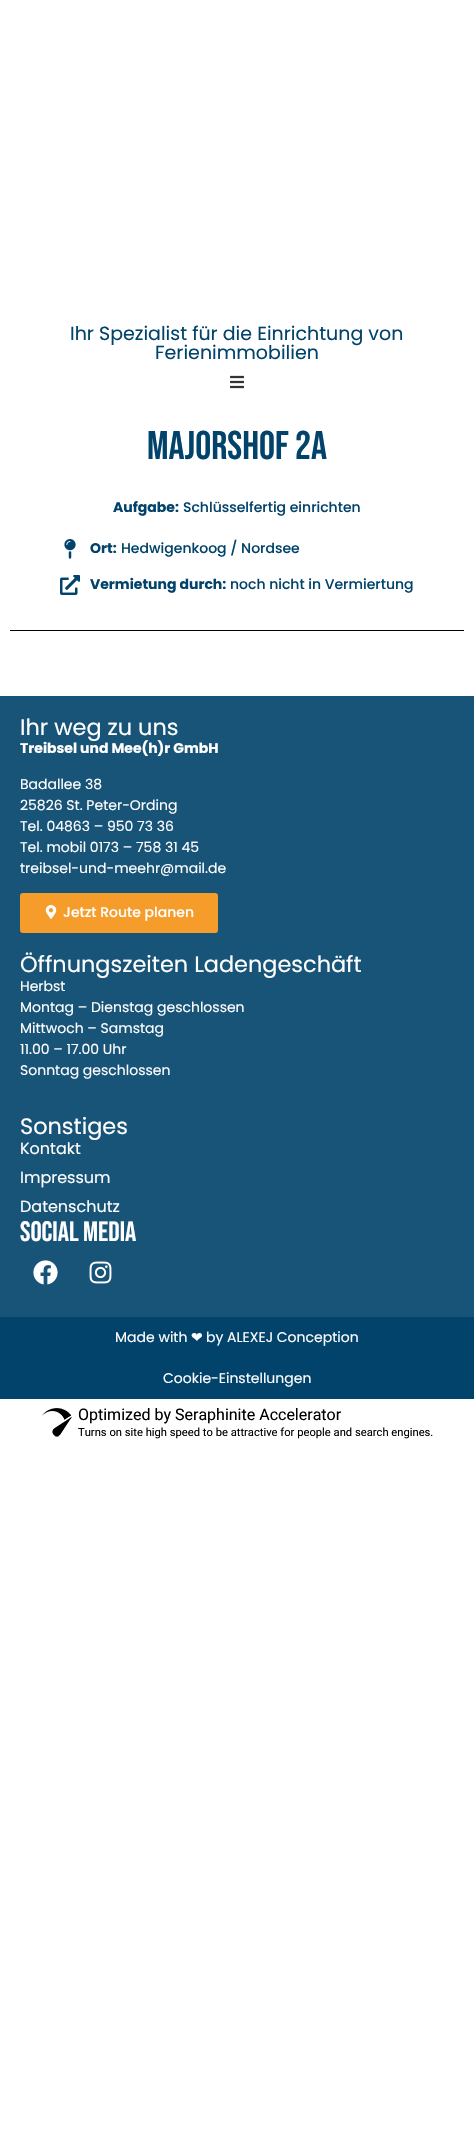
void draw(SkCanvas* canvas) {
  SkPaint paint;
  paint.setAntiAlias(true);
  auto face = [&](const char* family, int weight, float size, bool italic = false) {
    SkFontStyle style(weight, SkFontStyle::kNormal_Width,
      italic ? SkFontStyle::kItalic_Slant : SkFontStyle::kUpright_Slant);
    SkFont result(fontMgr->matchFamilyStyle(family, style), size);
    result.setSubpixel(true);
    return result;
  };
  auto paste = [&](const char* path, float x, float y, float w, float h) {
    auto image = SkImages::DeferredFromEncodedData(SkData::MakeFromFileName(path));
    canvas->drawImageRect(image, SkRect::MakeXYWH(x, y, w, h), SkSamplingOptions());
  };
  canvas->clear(0xffffffff);
  paste("img/1.png", 230, 375, 14, 14);
  paste("img/2.png", 64, 539, 12, 20);
  paste("img/3.png", 60, 575, 20, 20);
  paint.setColor(0xff000000);
  canvas->drawRect(SkRect::MakeXYWH(10, 630, 454, 1), paint);
  paint.setColor(0xff185478);
  canvas->drawRect(SkRect::MakeXYWH(0, 696, 474, 621), paint);
  paint.setColor(0xfff59c2b);
  canvas->drawRoundRect(SkRect::MakeXYWH(20, 893, 198, 40), 3, 3, paint);
  paste("img/4.png", 45, 905, 12, 14);
  paste("img/5.png", 33, 1260, 25, 25);
  paste("img/6.png", 89, 1261, 23, 23);
  paint.setColor(0xff02436b);
  canvas->drawRect(SkRect::MakeXYWH(0, 1317, 474, 82), paint);
  paste("img/7.png", 42, 1408, 30, 29);
  auto f0 = face("Poppins", 400, 19);
  canvas->drawString("Ihr Spezialist für die Einrichtung von", 70, 340, f0, paint);
  canvas->drawString("Ferienimmobilien", 155, 359, f0, paint);
  auto f1 = face("Bebas Neue", 400, 40);
  canvas->drawString("Majorshof 2A", 147, 459, f1, paint);
  auto f2 = face("Poppins", 700, 14);
  canvas->drawString("Aufgabe:", 113, 512, f2, paint);
  auto f3 = face("Poppins", 500, 14);
  canvas->drawString("Schlüsselfertig einrichten", 183, 512, f3, paint);
  canvas->drawString("Ort:", 90, 553, f2, paint);
  canvas->drawString("Hedwigenkoog / Nordsee", 121, 553, f3, paint);
  canvas->drawString("Vermietung durch:", 90, 589, f2, paint);
  canvas->drawString("noch nicht in Vermiertung", 230, 589, f3, paint);
  auto f4 = face("Poppins", 400, 22.4f);
  paint.setColor(0xffffffff);
  canvas->drawString("Ihr weg zu uns", 20, 735, f4, paint);
  canvas->drawString("Treibsel und Mee(h)r GmbH", 20, 753, f2, paint);
  auto f5 = face("Poppins", 400, 14);
  {
    const struct { const char* s; float x, y; } items[] = {
      {"Badallee 38", 20, 789},
      {"25826 St. Peter-Ording", 20, 810},
      {"Tel. 04863 – 950 73 36", 20, 831},
      {"Tel. mobil 0173 – 758 31 45", 20, 852},
      {"treibsel-und-meehr@mail.de", 20, 873},
    };
    for (auto [s, x, y] : items) {
      canvas->drawString(s, x, y, f5, paint);
    }
  }
  canvas->drawString("Jetzt Route planen", 63, 917, f3, paint);
  canvas->drawString("Öffnungszeiten Ladengeschäft", 20, 972, f4, paint);
  {
    const struct { const char* s; float x, y; } items[] = {
      {"Herbst", 20, 991},
      {"Montag – Dienstag geschlossen", 20, 1012},
      {"Mittwoch – Samstag", 20, 1033},
      {"11.00 – 17.00 Uhr", 20, 1054},
      {"Sonntag geschlossen", 20, 1075},
    };
    for (auto [s, x, y] : items) {
      canvas->drawString(s, x, y, f5, paint);
    }
  }
  canvas->drawString("Sonstiges", 20, 1134, f4, paint);
  auto f6 = face("Poppins", 400, 16);
  {
    const struct { const char* s; float x, y; } items[] = {
      {"Kontakt", 20, 1154},
      {"Impressum", 20, 1183},
      {"Datenschutz", 20, 1212},
    };
    for (auto [s, x, y] : items) {
      canvas->drawString(s, x, y, f6, paint);
    }
  }
  auto f7 = face("Bebas Neue", 400, 28);
  canvas->drawString("SOCIAL MEDIA", 20, 1241, f7, paint);
  canvas->drawString("Made with", 115, 1342, f5, paint);
  auto f8 = face("DejaVu Sans", 400, 14);
  canvas->drawString("❤", 191, 1342, f8, paint);
  canvas->drawString("by ALEXEJ Conception", 206, 1342, f5, paint);
  canvas->drawString("Cookie-Einstellungen", 163, 1383, f5, paint);
  auto f9 = face("Roboto", 400, 16);
  paint.setColor(0xff000000);
  canvas->drawString("Optimized by Seraphinite Accelerator", 78, 1420, f9, paint);
  auto f10 = face("Roboto", 400, 11.2f);
  canvas->drawString("Turns on site high speed to be attractive for people and search engines.", 78, 1436, f10, paint);
}
